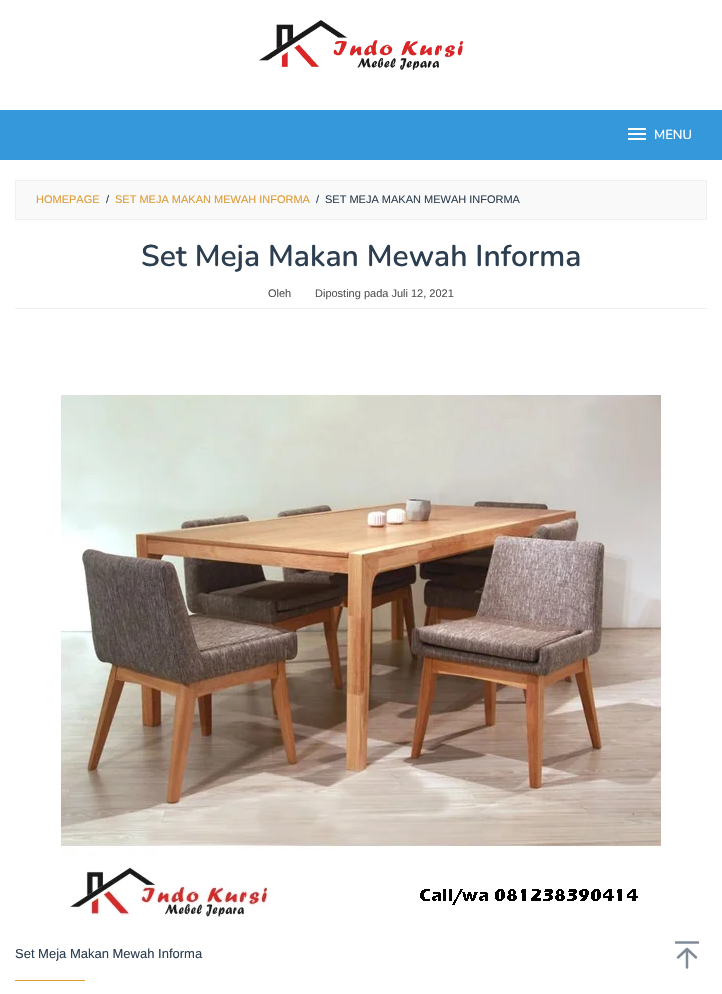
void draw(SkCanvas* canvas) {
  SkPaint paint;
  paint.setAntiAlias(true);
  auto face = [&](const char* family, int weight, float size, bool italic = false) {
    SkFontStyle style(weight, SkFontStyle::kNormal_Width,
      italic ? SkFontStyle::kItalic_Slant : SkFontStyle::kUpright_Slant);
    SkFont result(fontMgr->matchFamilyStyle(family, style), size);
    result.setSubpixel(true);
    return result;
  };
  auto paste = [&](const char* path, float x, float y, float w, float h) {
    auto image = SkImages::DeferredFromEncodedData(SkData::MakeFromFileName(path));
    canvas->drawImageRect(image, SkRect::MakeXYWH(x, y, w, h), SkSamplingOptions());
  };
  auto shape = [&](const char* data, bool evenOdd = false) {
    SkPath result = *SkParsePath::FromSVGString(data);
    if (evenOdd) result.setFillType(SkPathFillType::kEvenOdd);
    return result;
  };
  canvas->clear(0xffffffff);
  paste("img/1.png", 259, 20, 204, 50);
  paint.setColor(0xff3498db);
  canvas->drawRect(SkRect::MakeXYWH(0, 110, 722, 50), paint);
  paste("img/2.png", 628, 128, 18, 12);
  paint.setColor(0xfff9f9f9);
  canvas->drawRect(SkRect::MakeXYWH(15.5f, 180.5f, 691, 39), paint);
  paint.setStroke(true);
  paint.setStrokeWidth(1);
  paint.setColor(0xffecf0f1);
  canvas->drawRect(SkRect::MakeXYWH(15.5f, 180.5f, 691, 39), paint);
  paint.setStroke(false);
  canvas->drawRect(SkRect::MakeXYWH(15, 308, 692, 1), paint);
  paste("img/3.png", 61, 394, 600, 527);
  paint.setColor(0xffdd9933);
  canvas->drawRect(SkRect::MakeXYWH(15, 980, 70, 1), paint);
  paint.setStroke(true);
  paint.setStrokeWidth(2.5f);
  paint.setStrokeCap(SkPaint::kRound_Cap);
  paint.setStrokeJoin(SkPaint::kRound_Join);
  paint.setColor(0xff808b96);
  canvas->drawPath(shape("M687 967.5V949M678 957.5L687 949L696 957.5M676 942.5H698"), paint);
  auto f0 = face("Nunito", 500, 13);
  paint.setStroke(false);
  paint.setColor(0xffffffff);
  canvas->drawString("MENU", 654, 139, f0, paint);
  auto f1 = face("Liberation Sans", 400, 11);
  paint.setColor(0xffdd9933);
  canvas->drawString("HOMEPAGE", 36, 203, f1, paint);
  paint.setColor(0xff2c3e50);
  canvas->drawString("/", 106, 203, f1, paint);
  paint.setColor(0xffdd9933);
  canvas->drawString("SET MEJA MAKAN MEWAH INFORMA", 115, 203, f1, paint);
  paint.setColor(0xff2c3e50);
  canvas->drawString("/", 316, 203, f1, paint);
  canvas->drawString("SET MEJA MAKAN MEWAH INFORMA", 325, 203, f1, paint);
  auto f2 = face("Nunito", 600, 30);
  canvas->drawString("Set Meja Makan Mewah Informa", 141, 266, f2, paint);
  paint.setColor(0xff555555);
  canvas->drawString("Oleh", 268, 297, f1, paint);
  canvas->drawString("Diposting pada Juli 12, 2021", 315, 297, f1, paint);
  auto f3 = face("Liberation Sans", 400, 13);
  paint.setColor(0xff2c3e50);
  canvas->drawString("Set Meja Makan Mewah Informa", 15, 958, f3, paint);
}
